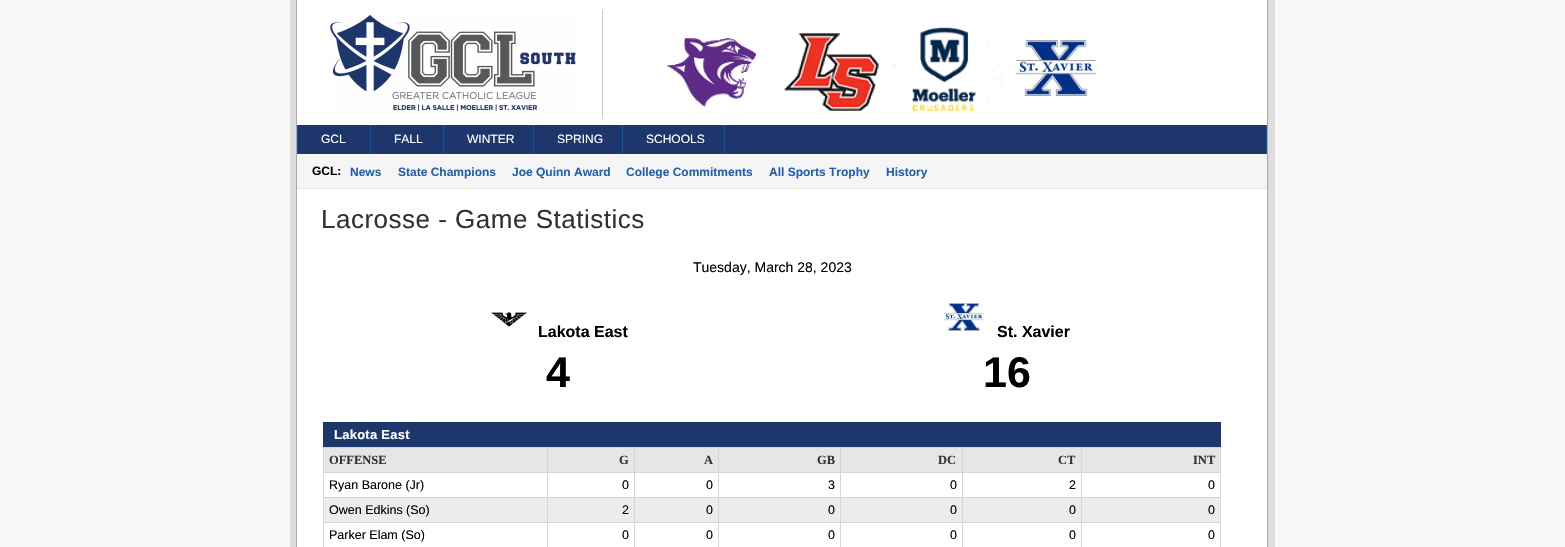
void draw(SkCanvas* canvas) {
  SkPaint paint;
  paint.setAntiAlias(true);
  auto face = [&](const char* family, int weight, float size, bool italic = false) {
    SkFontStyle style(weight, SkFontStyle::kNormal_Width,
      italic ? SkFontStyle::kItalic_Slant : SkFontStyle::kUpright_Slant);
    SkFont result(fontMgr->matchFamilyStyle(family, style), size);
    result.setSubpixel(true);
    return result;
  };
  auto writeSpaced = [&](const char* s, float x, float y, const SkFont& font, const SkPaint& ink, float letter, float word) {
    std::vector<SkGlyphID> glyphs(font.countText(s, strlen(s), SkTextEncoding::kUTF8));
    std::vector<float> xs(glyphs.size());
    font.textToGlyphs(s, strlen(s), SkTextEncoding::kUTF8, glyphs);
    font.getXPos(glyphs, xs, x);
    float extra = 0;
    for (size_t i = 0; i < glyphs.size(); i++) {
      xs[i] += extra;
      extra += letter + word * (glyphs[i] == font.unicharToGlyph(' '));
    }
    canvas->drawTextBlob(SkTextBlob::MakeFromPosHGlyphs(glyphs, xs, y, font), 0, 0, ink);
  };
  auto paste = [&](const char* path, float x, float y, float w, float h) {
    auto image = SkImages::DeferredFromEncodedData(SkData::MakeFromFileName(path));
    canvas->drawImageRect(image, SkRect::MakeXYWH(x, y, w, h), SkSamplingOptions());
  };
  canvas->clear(0xfff7f7f7);
  {
    const struct { float x, y, w, h; SkColor color; } items[] = {
      {290, 0, 985, 547, 0xffdddddd},
      {297, 0, 970, 547, 0xffffffff},
      {1267, 0, 1, 547, 0xffaaaaaa},
      {296, 0, 1, 547, 0xffaaaaaa},
    };
    for (auto [x, y, w, h, color] : items) {
      paint.setColor(color);
      canvas->drawRect(SkRect::MakeXYWH(x, y, w, h), paint);
    }
  }
  paste("img/1.png", 330, 15, 246, 96);
  paint.setColor(0xffcccccc);
  canvas->drawRect(SkRect::MakeXYWH(602, 10, 1, 109), paint);
  paste("img/2.png", 667, 27, 429, 85);
  {
    const struct { float x, y, w, h; SkColor color; } items[] = {
      {298, 125, 968, 29, 0xff1d366c},
      {297, 125, 1, 30, 0xff0059ad},
      {370, 125, 1, 30, 0xff0059ad},
      {443, 125, 1, 30, 0xff0059ad},
      {533, 125, 1, 30, 0xff0059ad},
      {622, 125, 1, 30, 0xff0059ad},
      {1266, 125, 1, 30, 0xff0059ad},
      {724, 125, 1, 30, 0xff0059ad},
      {297, 154, 970, 34, 0xfff5f5f5},
      {297, 188, 970, 1, 0xffe5e5e5},
    };
    for (auto [x, y, w, h, color] : items) {
      paint.setColor(color);
      canvas->drawRect(SkRect::MakeXYWH(x, y, w, h), paint);
    }
  }
  paste("img/3.png", 491, 312, 36, 15);
  paste("img/4.png", 944, 303, 40, 28);
  {
    const struct { float x, y, w, h; SkColor color; } items[] = {
      {324, 422, 897, 25, 0xff1d366c},
      {323, 422, 1, 26, 0xff1d366c},
      {324, 448, 223, 24, 0xffe6e6e6},
      {1081, 447, 140, 1, 0xffd5d5d5},
      {1081, 472, 140, 1, 0xffd5d5d5},
      {1081, 497, 140, 1, 0xffd5d5d5},
      {324, 498, 896, 24, 0xffececec},
      {1081, 522, 140, 1, 0xffd5d5d5},
      {1081, 522, 1, 25, 0xffd5d5d5},
      {962, 522, 120, 1, 0xffd5d5d5},
      {1081, 497, 1, 26, 0xffd5d5d5},
      {962, 497, 120, 1, 0xffd5d5d5},
      {1081, 472, 1, 26, 0xffd5d5d5},
      {962, 472, 120, 1, 0xffd5d5d5},
      {1081, 447, 1, 26, 0xffd5d5d5},
      {962, 447, 120, 1, 0xffd5d5d5},
      {962, 522, 1, 25, 0xffd5d5d5},
      {840, 522, 123, 1, 0xffd5d5d5},
      {962, 497, 1, 26, 0xffd5d5d5},
      {840, 497, 123, 1, 0xffd5d5d5},
      {962, 472, 1, 26, 0xffd5d5d5},
      {840, 472, 123, 1, 0xffd5d5d5},
      {962, 447, 1, 26, 0xffd5d5d5},
      {840, 447, 123, 1, 0xffd5d5d5},
      {840, 522, 1, 25, 0xffd5d5d5},
      {718, 522, 123, 1, 0xffd5d5d5},
      {840, 497, 1, 26, 0xffd5d5d5},
      {718, 497, 123, 1, 0xffd5d5d5},
      {840, 472, 1, 26, 0xffd5d5d5},
      {718, 472, 123, 1, 0xffd5d5d5},
      {840, 447, 1, 26, 0xffd5d5d5},
      {718, 447, 123, 1, 0xffd5d5d5},
      {718, 522, 1, 25, 0xffd5d5d5},
      {634, 522, 85, 1, 0xffd5d5d5},
      {718, 497, 1, 26, 0xffd5d5d5},
      {634, 497, 85, 1, 0xffd5d5d5},
      {718, 472, 1, 26, 0xffd5d5d5},
      {634, 472, 85, 1, 0xffd5d5d5},
      {718, 447, 1, 26, 0xffd5d5d5},
      {634, 447, 85, 1, 0xffd5d5d5},
      {634, 522, 1, 25, 0xffd5d5d5},
      {547, 522, 88, 1, 0xffd5d5d5},
      {634, 497, 1, 26, 0xffd5d5d5},
      {547, 497, 88, 1, 0xffd5d5d5},
      {634, 472, 1, 26, 0xffd5d5d5},
      {547, 472, 88, 1, 0xffd5d5d5},
      {634, 447, 1, 26, 0xffd5d5d5},
      {547, 447, 88, 1, 0xffd5d5d5},
      {547, 522, 1, 25, 0xffd5d5d5},
      {323, 522, 225, 1, 0xffd5d5d5},
      {547, 497, 1, 26, 0xffd5d5d5},
      {323, 497, 225, 1, 0xffd5d5d5},
      {547, 472, 1, 26, 0xffd5d5d5},
      {323, 472, 225, 1, 0xffd5d5d5},
      {547, 447, 1, 26, 0xffd5d5d5},
      {323, 447, 225, 1, 0xffd5d5d5},
      {323, 522, 1, 25, 0xffd5d5d5},
      {323, 497, 1, 26, 0xffd5d5d5},
      {323, 472, 1, 26, 0xffd5d5d5},
      {323, 447, 1, 26, 0xffd5d5d5},
      {548, 448, 86, 24, 0xffe6e6e6},
      {635, 448, 83, 24, 0xffe6e6e6},
      {719, 448, 121, 24, 0xffe6e6e6},
      {841, 448, 121, 24, 0xffe6e6e6},
      {963, 448, 118, 24, 0xffe6e6e6},
      {1082, 448, 138, 24, 0xffe6e6e6},
      {1220, 522, 1, 25, 0xffd5d5d5},
      {1220, 497, 1, 26, 0xffd5d5d5},
      {1220, 472, 1, 26, 0xffd5d5d5},
      {1220, 447, 1, 26, 0xffd5d5d5},
    };
    for (auto [x, y, w, h, color] : items) {
      paint.setColor(color);
      canvas->drawRect(SkRect::MakeXYWH(x, y, w, h), paint);
    }
  }
  auto f0 = face("Liberation Sans", 400, 12);
  paint.setColor(0xffffffff);
  {
    const struct { const char* s; float x, y; } items[] = {
      {"GCL", 321, 143},
      {"FALL", 394, 143},
      {"WINTER", 467, 143},
      {"SPRING", 557, 143},
      {"SCHOOLS", 646, 143},
    };
    for (auto [s, x, y] : items) {
      canvas->drawString(s, x, y, f0, paint);
    }
  }
  auto f1 = face("Liberation Sans", 700, 12);
  paint.setColor(0xff000000);
  canvas->drawString("GCL:", 312, 175, f1, paint);
  paint.setColor(0xff225fb2);
  {
    const struct { const char* s; float x, y; } items[] = {
      {"News", 350, 176},
      {"State Champions", 398, 176},
      {"Joe Quinn Award", 512, 176},
      {"College Commitments", 626, 176},
      {"All Sports Trophy", 769, 176},
      {"History", 886, 176},
    };
    for (auto [s, x, y] : items) {
      canvas->drawString(s, x, y, f1, paint);
    }
  }
  auto f2 = face("Liberation Sans", 400, 26);
  paint.setColor(0xff333333);
  writeSpaced("Lacrosse - Game Statistics", 321, 228, f2, paint, 0.5f, 0);
  auto f3 = face("Liberation Sans", 400, 14);
  paint.setColor(0xff000000);
  canvas->drawString("Tuesday, March 28, 2023", 693, 272, f3, paint);
  auto f4 = face("Liberation Sans", 700, 16);
  canvas->drawString("Lakota East", 538, 337, f4, paint);
  auto f5 = face("Liberation Sans", 700, 43);
  canvas->drawString("4", 546, 387, f5, paint);
  canvas->drawString("St. Xavier", 997, 337, f4, paint);
  canvas->drawString("16", 983, 387, f5, paint);
  auto f6 = face("Liberation Sans", 700, 13);
  paint.setColor(0xffffffff);
  writeSpaced("Lakota East", 334, 439, f6, paint, 0.25f, 0);
  auto f7 = face("Liberation Serif", 700, 12.5f);
  paint.setColor(0xff333333);
  {
    const struct { const char* s; float x, y; } items[] = {
      {"OFFENSE", 329, 464},
      {"G", 619, 464},
      {"A", 704, 464},
      {"GB", 817, 464},
      {"DC", 938, 464},
      {"CT", 1058, 464},
      {"INT", 1193, 464},
    };
    for (auto [s, x, y] : items) {
      canvas->drawString(s, x, y, f7, paint);
    }
  }
  auto f8 = face("Liberation Sans", 400, 12.5f);
  paint.setColor(0xff000000);
  {
    const struct { const char* s; float x, y; } items[] = {
      {"Ryan Barone (Jr)", 329, 489},
      {"0", 622, 489},
      {"0", 706, 489},
      {"3", 828, 489},
      {"0", 950, 489},
      {"2", 1069, 489},
      {"0", 1208, 489},
      {"Owen Edkins (So)", 329, 514},
      {"2", 622, 514},
      {"0", 706, 514},
      {"0", 828, 514},
      {"0", 950, 514},
      {"0", 1069, 514},
      {"0", 1208, 514},
      {"Parker Elam (So)", 329, 539},
      {"0", 622, 539},
      {"0", 706, 539},
      {"0", 828, 539},
      {"0", 950, 539},
      {"0", 1069, 539},
      {"0", 1208, 539},
    };
    for (auto [s, x, y] : items) {
      canvas->drawString(s, x, y, f8, paint);
    }
  }
}
